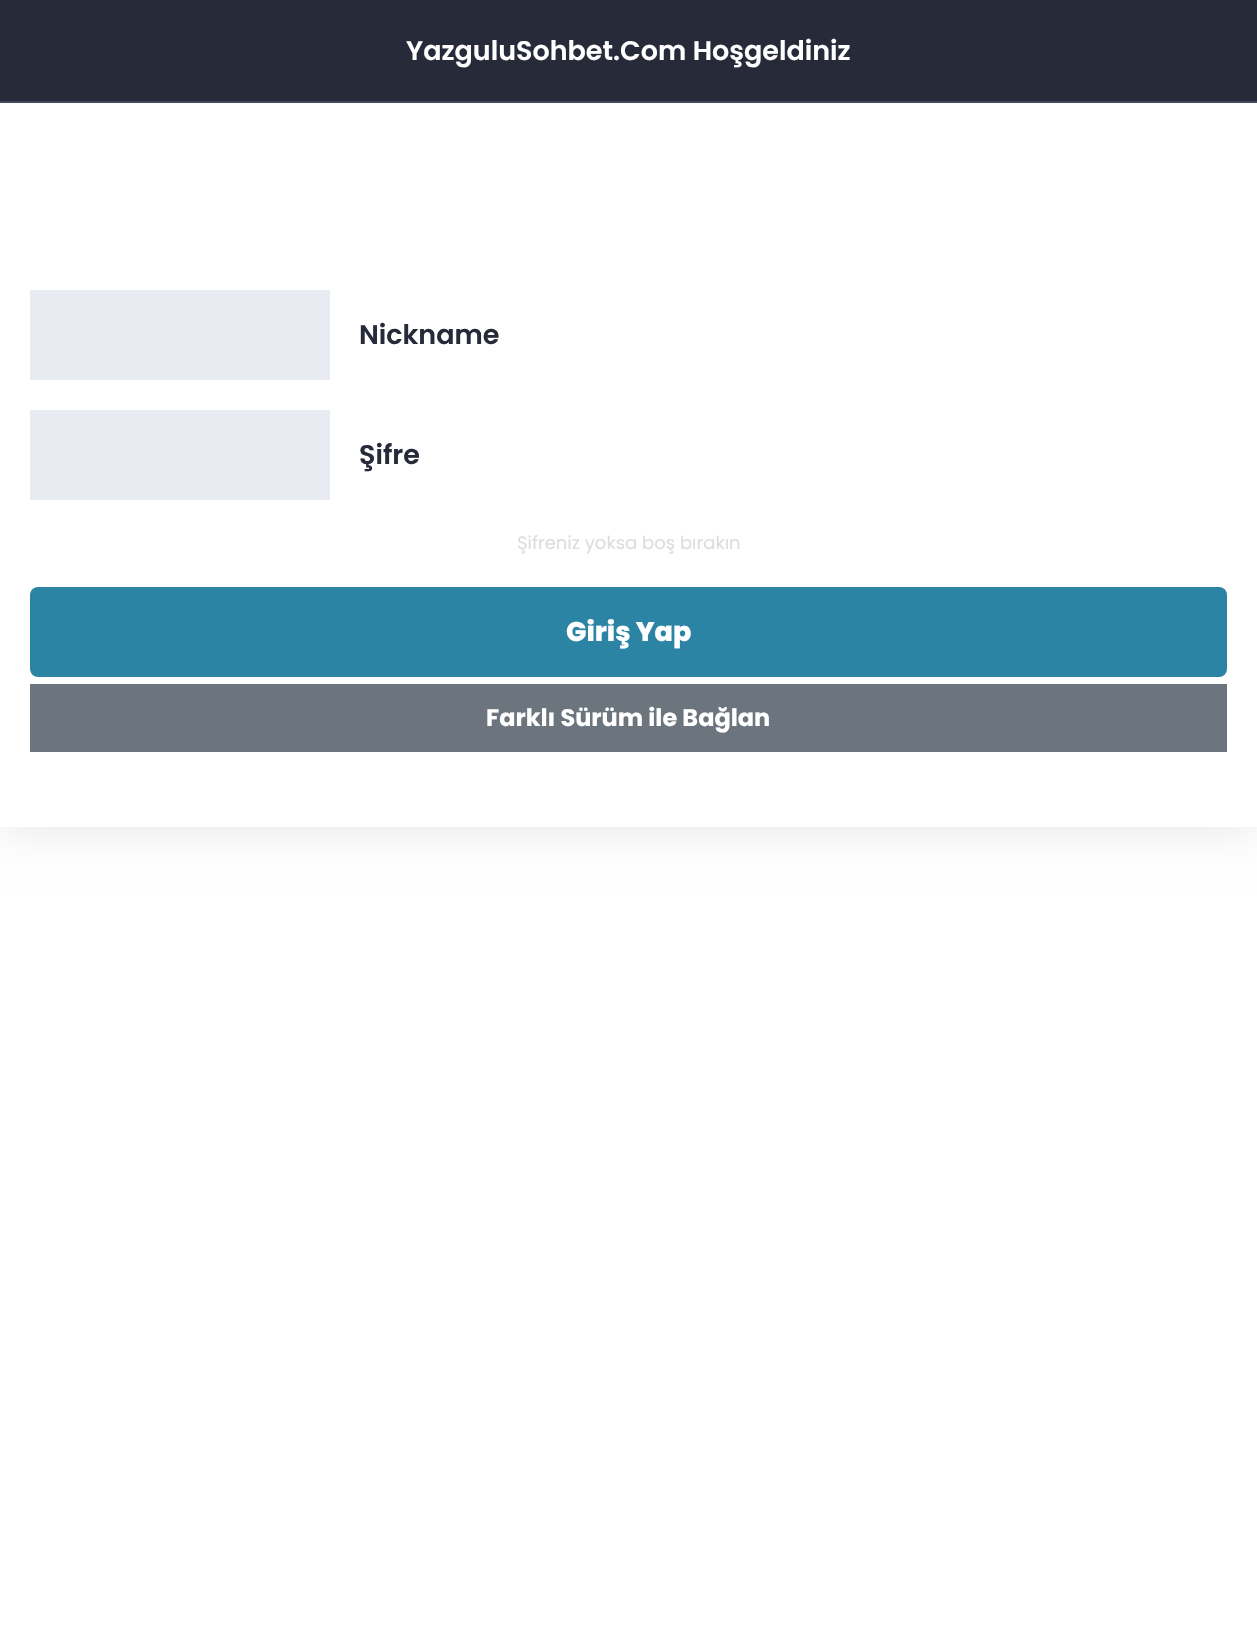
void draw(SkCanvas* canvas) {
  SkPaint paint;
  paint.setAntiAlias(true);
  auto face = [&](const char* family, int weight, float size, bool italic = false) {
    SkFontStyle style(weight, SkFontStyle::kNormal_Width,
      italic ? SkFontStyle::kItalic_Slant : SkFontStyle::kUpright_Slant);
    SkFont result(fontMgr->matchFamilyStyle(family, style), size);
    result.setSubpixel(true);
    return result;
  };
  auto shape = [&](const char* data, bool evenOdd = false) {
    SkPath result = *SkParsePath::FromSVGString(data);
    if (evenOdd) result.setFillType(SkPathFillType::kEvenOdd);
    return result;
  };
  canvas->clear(0xffffffff);
  canvas->save();
  canvas->clipPath(shape("M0 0H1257V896H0ZM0 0H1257V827H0Z", true), true);
  paint.setColor(0x1a000000);
  paint.setMaskFilter(SkMaskFilter::MakeBlur(kNormal_SkBlurStyle, 22.5f));
  canvas->drawRect(SkRect::MakeXYWH(0, 0, 1257, 827), paint);
  paint.setMaskFilter(nullptr);
  canvas->restore();
  {
    const struct { float x, y, w, h; SkColor color; } items[] = {
      {0, 0, 1257, 101, 0xff272a39},
      {0, 101, 1257, 2, 0xff45495d},
      {30, 290, 300, 90, 0xffe9ebf2},
      {30, 410, 300, 90, 0xffe9ebf2},
    };
    for (auto [x, y, w, h, color] : items) {
      paint.setColor(color);
      canvas->drawRect(SkRect::MakeXYWH(x, y, w, h), paint);
    }
  }
  paint.setColor(0xff2c84a5);
  canvas->drawRoundRect(SkRect::MakeXYWH(30, 587, 1197, 90), 8, 8, paint);
  paint.setColor(0xff6c757d);
  canvas->drawRect(SkRect::MakeXYWH(30, 684, 1197, 68), paint);
  auto f0 = face("Poppins", 600, 27);
  paint.setColor(0xffffffff);
  canvas->drawString("YazguluSohbet.Com Hoşgeldiniz", 406, 60, f0, paint);
  paint.setColor(0xff272a39);
  canvas->drawString("Nickname", 359, 344, f0, paint);
  canvas->drawString("Şifre", 359, 464, f0, paint);
  auto f1 = face("Poppins", 400, 18);
  paint.setColor(0xffdddddd);
  canvas->drawString("Şifreniz yoksa boş bırakın", 517, 549, f1, paint);
  auto f2 = face("Poppins", 800, 27);
  paint.setColor(0xffffffff);
  canvas->drawString("Giriş Yap", 566, 641, f2, paint);
  auto f3 = face("Poppins", 700, 24);
  canvas->drawString("Farklı Sürüm ile Bağlan", 486, 726, f3, paint);
}
